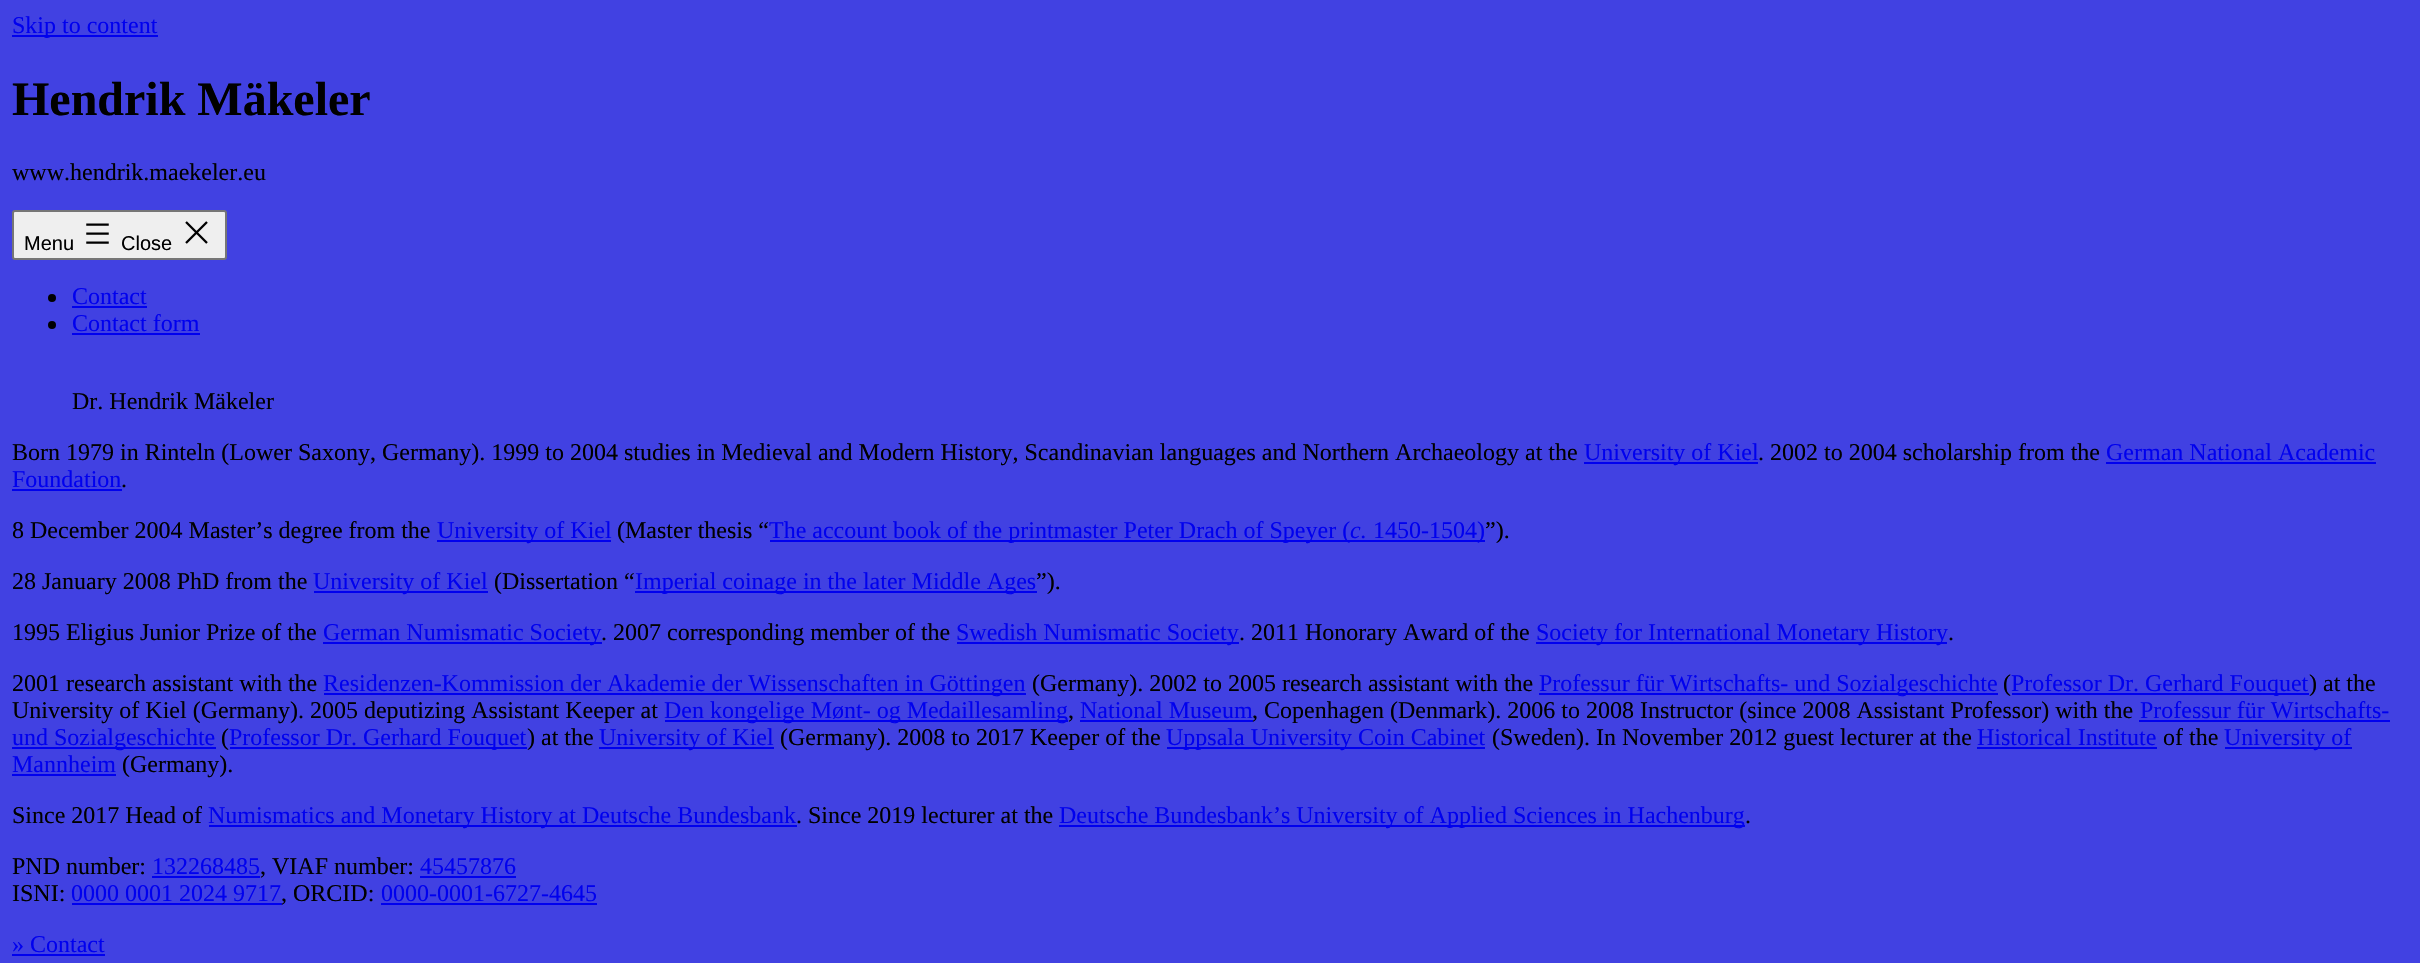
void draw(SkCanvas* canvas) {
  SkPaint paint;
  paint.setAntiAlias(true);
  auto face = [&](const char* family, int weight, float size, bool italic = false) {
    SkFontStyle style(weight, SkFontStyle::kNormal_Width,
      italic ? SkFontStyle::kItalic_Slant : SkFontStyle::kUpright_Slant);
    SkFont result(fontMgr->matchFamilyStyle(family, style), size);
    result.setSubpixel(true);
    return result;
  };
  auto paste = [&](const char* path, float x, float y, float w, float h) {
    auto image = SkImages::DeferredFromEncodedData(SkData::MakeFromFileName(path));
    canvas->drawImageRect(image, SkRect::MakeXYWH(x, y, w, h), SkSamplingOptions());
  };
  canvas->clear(0xff4141e2);
  paint.setColor(0xff0000ee);
  canvas->drawRect(SkRect::MakeXYWH(12, 35, 146, 2), paint);
  paint.setColor(0xffefefef);
  canvas->drawRoundRect(SkRect::MakeXYWH(13, 211, 213, 48), 2, 2, paint);
  paint.setStroke(true);
  paint.setStrokeWidth(2);
  paint.setColor(0xff767676);
  canvas->drawRoundRect(SkRect::MakeXYWH(13, 211, 213, 48), 2, 2, paint);
  paste("img/1.png", 86, 223, 23, 21);
  paste("img/2.png", 185, 221, 23, 23);
  paint.setStroke(false);
  paint.setColor(0xff000000);
  canvas->drawCircle(52, 298, 4, paint);
  paint.setColor(0xff0000ee);
  canvas->drawRect(SkRect::MakeXYWH(72, 306, 75, 2), paint);
  paint.setColor(0xff000000);
  canvas->drawCircle(52, 325, 4, paint);
  {
    const struct { float x, y, w, h; SkColor color; } items[] = {
      {72, 333, 128, 2, 0xff0000ee},
      {1584, 462, 174, 2, 0xff0000ee},
      {2106, 462, 270, 2, 0xff0000ee},
      {12, 489, 110, 2, 0xff0000ee},
      {437, 540, 174, 2, 0xff0000ee},
      {770, 540, 715, 2, 0xff0000ee},
      {314, 591, 174, 2, 0xff0000ee},
      {635, 591, 402, 2, 0xff0000ee},
      {323, 642, 279, 2, 0xff0000ee},
      {957, 642, 282, 2, 0xff0000ee},
      {1536, 642, 411, 2, 0xff0000ee},
      {324, 693, 702, 2, 0xff0000ee},
      {1539, 693, 459, 2, 0xff0000ee},
      {2012, 693, 297, 2, 0xff0000ee},
      {665, 720, 403, 2, 0xff0000ee},
      {1080, 720, 173, 2, 0xff0000ee},
      {2139, 720, 251, 2, 0xff0000ee},
      {12, 747, 204, 2, 0xff0000ee},
      {230, 747, 297, 2, 0xff0000ee},
      {599, 747, 175, 2, 0xff0000ee},
      {1167, 747, 318, 2, 0xff0000ee},
      {1977, 747, 180, 2, 0xff0000ee},
      {2225, 747, 127, 2, 0xff0000ee},
      {12, 774, 104, 2, 0xff0000ee},
      {209, 825, 588, 2, 0xff0000ee},
      {1059, 825, 686, 2, 0xff0000ee},
      {152, 876, 108, 2, 0xff0000ee},
      {420, 876, 96, 2, 0xff0000ee},
      {72, 903, 210, 2, 0xff0000ee},
      {381, 903, 216, 2, 0xff0000ee},
      {12, 954, 93, 2, 0xff0000ee},
    };
    for (auto [x, y, w, h, color] : items) {
      paint.setColor(color);
      canvas->drawRect(SkRect::MakeXYWH(x, y, w, h), paint);
    }
  }
  auto f0 = face("Liberation Serif", 400, 24);
  canvas->drawString("Skip to content", 12, 33, f0, paint);
  auto f1 = face("Liberation Serif", 700, 48);
  paint.setColor(0xff000000);
  canvas->drawString("Hendrik Mäkeler", 12, 115, f1, paint);
  canvas->drawString("www.hendrik.maekeler.eu", 12, 180, f0, paint);
  auto f2 = face("Liberation Sans", 400, 20);
  canvas->drawString("Menu", 24, 250, f2, paint);
  canvas->drawString("Close", 121, 250, f2, paint);
  paint.setColor(0xff0000ee);
  canvas->drawString("Contact", 72, 304, f0, paint);
  canvas->drawString("Contact form", 72, 331, f0, paint);
  paint.setColor(0xff000000);
  canvas->drawString("Dr. Hendrik Mäkeler", 72, 409, f0, paint);
  canvas->drawString("Born 1979 in Rinteln (Lower Saxony, Germany). 1999 to 2004 studies in Medieval and Modern History, Scandinavian languages and Northern Archaeology at the", 12, 460, f0, paint);
  paint.setColor(0xff0000ee);
  canvas->drawString("University of Kiel", 1584, 460, f0, paint);
  paint.setColor(0xff000000);
  canvas->drawString(". 2002 to 2004 scholarship from the", 1758, 460, f0, paint);
  paint.setColor(0xff0000ee);
  canvas->drawString("German National Academic", 2106, 460, f0, paint);
  canvas->drawString("Foundation", 12, 487, f0, paint);
  paint.setColor(0xff000000);
  canvas->drawString(".", 121, 487, f0, paint);
  canvas->drawString("8 December 2004 Master’s degree from the", 12, 538, f0, paint);
  paint.setColor(0xff0000ee);
  canvas->drawString("University of Kiel", 437, 538, f0, paint);
  paint.setColor(0xff000000);
  canvas->drawString("(Master thesis “", 617, 538, f0, paint);
  paint.setColor(0xff0000ee);
  canvas->drawString("The account book of the printmaster Peter Drach of Speyer (", 769, 538, f0, paint);
  auto f3 = face("Liberation Serif", 400, 24, true);
  canvas->drawString("c.", 1350, 538, f3, paint);
  canvas->drawString("1450-1504)", 1373, 538, f0, paint);
  paint.setColor(0xff000000);
  canvas->drawString("”).", 1485, 538, f0, paint);
  canvas->drawString("28 January 2008 PhD from the", 12, 589, f0, paint);
  paint.setColor(0xff0000ee);
  canvas->drawString("University of Kiel", 313, 589, f0, paint);
  paint.setColor(0xff000000);
  canvas->drawString("(Dissertation “", 494, 589, f0, paint);
  paint.setColor(0xff0000ee);
  canvas->drawString("Imperial coinage in the later Middle Ages", 635, 589, f0, paint);
  paint.setColor(0xff000000);
  canvas->drawString("”).", 1036, 589, f0, paint);
  canvas->drawString("1995 Eligius Junior Prize of the", 12, 640, f0, paint);
  paint.setColor(0xff0000ee);
  canvas->drawString("German Numismatic Society", 323, 640, f0, paint);
  paint.setColor(0xff000000);
  canvas->drawString(". 2007 corresponding member of the", 601, 640, f0, paint);
  paint.setColor(0xff0000ee);
  canvas->drawString("Swedish Numismatic Society", 956, 640, f0, paint);
  paint.setColor(0xff000000);
  canvas->drawString(". 2011 Honorary Award of the", 1239, 640, f0, paint);
  paint.setColor(0xff0000ee);
  canvas->drawString("Society for International Monetary History", 1536, 640, f0, paint);
  paint.setColor(0xff000000);
  canvas->drawString(".", 1948, 640, f0, paint);
  canvas->drawString("2001 research assistant with the", 12, 691, f0, paint);
  paint.setColor(0xff0000ee);
  canvas->drawString("Residenzen-Kommission der Akademie der Wissenschaften in Göttingen", 323, 691, f0, paint);
  paint.setColor(0xff000000);
  canvas->drawString("(Germany). 2002 to 2005 research assistant with the", 1032, 691, f0, paint);
  paint.setColor(0xff0000ee);
  canvas->drawString("Professur für Wirtschafts- und Sozialgeschichte", 1539, 691, f0, paint);
  paint.setColor(0xff000000);
  canvas->drawString("(", 2003, 691, f0, paint);
  paint.setColor(0xff0000ee);
  canvas->drawString("Professor Dr. Gerhard Fouquet", 2011, 691, f0, paint);
  paint.setColor(0xff000000);
  canvas->drawString(") at the", 2309, 691, f0, paint);
  canvas->drawString("University of Kiel (Germany). 2005 deputizing Assistant Keeper at", 12, 718, f0, paint);
  paint.setColor(0xff0000ee);
  canvas->drawString("Den kongelige Mønt- og Medaillesamling", 664, 718, f0, paint);
  paint.setColor(0xff000000);
  canvas->drawString(",", 1068, 718, f0, paint);
  paint.setColor(0xff0000ee);
  canvas->drawString("National Museum", 1080, 718, f0, paint);
  paint.setColor(0xff000000);
  canvas->drawString(", Copenhagen (Denmark). 2006 to 2008 Instructor (since 2008 Assistant Professor) with the", 1252, 718, f0, paint);
  paint.setColor(0xff0000ee);
  canvas->drawString("Professur für Wirtschafts-", 2140, 718, f0, paint);
  canvas->drawString("und Sozialgeschichte", 12, 745, f0, paint);
  paint.setColor(0xff000000);
  canvas->drawString("(", 221, 745, f0, paint);
  paint.setColor(0xff0000ee);
  canvas->drawString("Professor Dr. Gerhard Fouquet", 229, 745, f0, paint);
  paint.setColor(0xff000000);
  canvas->drawString(") at the", 527, 745, f0, paint);
  paint.setColor(0xff0000ee);
  canvas->drawString("University of Kiel", 599, 745, f0, paint);
  paint.setColor(0xff000000);
  canvas->drawString("(Germany). 2008 to 2017 Keeper of the", 780, 745, f0, paint);
  paint.setColor(0xff0000ee);
  canvas->drawString("Uppsala University Coin Cabinet", 1166, 745, f0, paint);
  paint.setColor(0xff000000);
  canvas->drawString("(Sweden). In November 2012 guest lecturer at the", 1492, 745, f0, paint);
  paint.setColor(0xff0000ee);
  canvas->drawString("Historical Institute", 1977, 745, f0, paint);
  paint.setColor(0xff000000);
  canvas->drawString("of the", 2163, 745, f0, paint);
  paint.setColor(0xff0000ee);
  canvas->drawString("University of", 2224, 745, f0, paint);
  canvas->drawString("Mannheim", 12, 772, f0, paint);
  paint.setColor(0xff000000);
  canvas->drawString("(Germany).", 122, 772, f0, paint);
  canvas->drawString("Since 2017 Head of", 12, 823, f0, paint);
  paint.setColor(0xff0000ee);
  canvas->drawString("Numismatics and Monetary History at Deutsche Bundesbank", 208, 823, f0, paint);
  paint.setColor(0xff000000);
  canvas->drawString(". Since 2019 lecturer at the", 796, 823, f0, paint);
  paint.setColor(0xff0000ee);
  canvas->drawString("Deutsche Bundesbank’s University of Applied Sciences in Hachenburg", 1059, 823, f0, paint);
  paint.setColor(0xff000000);
  canvas->drawString(".", 1745, 823, f0, paint);
  canvas->drawString("PND number:", 12, 874, f0, paint);
  paint.setColor(0xff0000ee);
  canvas->drawString("132268485", 152, 874, f0, paint);
  paint.setColor(0xff000000);
  canvas->drawString(", VIAF number:", 260, 874, f0, paint);
  paint.setColor(0xff0000ee);
  canvas->drawString("45457876", 420, 874, f0, paint);
  paint.setColor(0xff000000);
  canvas->drawString("ISNI:", 12, 901, f0, paint);
  paint.setColor(0xff0000ee);
  canvas->drawString("0000 0001 2024 9717", 71, 901, f0, paint);
  paint.setColor(0xff000000);
  canvas->drawString(", ORCID:", 281, 901, f0, paint);
  paint.setColor(0xff0000ee);
  canvas->drawString("0000-0001-6727-4645", 381, 901, f0, paint);
  canvas->drawString("» Contact", 12, 952, f0, paint);
}
